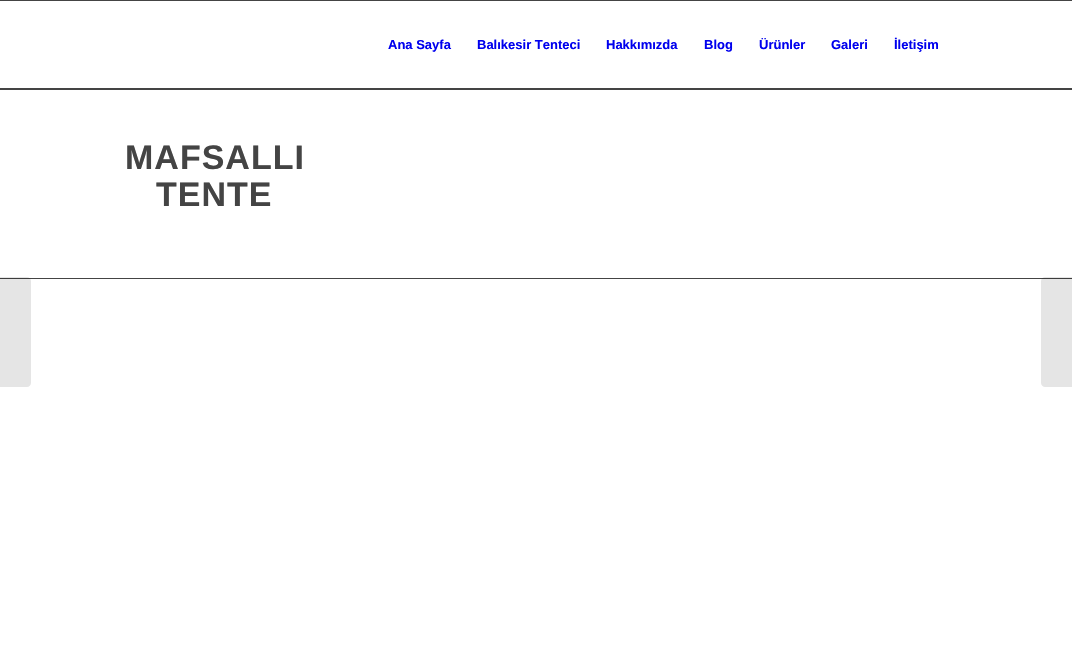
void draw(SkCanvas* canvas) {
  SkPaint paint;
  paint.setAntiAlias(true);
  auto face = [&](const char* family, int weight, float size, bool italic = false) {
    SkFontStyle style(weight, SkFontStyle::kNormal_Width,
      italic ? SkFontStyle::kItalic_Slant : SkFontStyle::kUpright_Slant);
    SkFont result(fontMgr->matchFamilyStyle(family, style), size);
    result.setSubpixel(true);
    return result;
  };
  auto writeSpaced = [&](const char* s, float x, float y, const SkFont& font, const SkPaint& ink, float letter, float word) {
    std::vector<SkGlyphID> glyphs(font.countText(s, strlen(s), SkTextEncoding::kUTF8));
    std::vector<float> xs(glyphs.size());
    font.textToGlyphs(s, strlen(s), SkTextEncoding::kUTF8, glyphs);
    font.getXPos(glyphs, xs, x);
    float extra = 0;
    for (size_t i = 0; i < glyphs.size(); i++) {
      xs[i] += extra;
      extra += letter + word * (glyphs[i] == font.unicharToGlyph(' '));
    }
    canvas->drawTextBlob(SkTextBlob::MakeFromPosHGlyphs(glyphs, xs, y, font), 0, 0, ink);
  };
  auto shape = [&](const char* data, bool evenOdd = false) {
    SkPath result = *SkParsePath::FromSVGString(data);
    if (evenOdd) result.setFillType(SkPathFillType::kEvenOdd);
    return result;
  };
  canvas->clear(0xffffffff);
  {
    const struct { float x, y, w, h; SkColor color; } items[] = {
      {0, 0, 1072, 1, 0xff444444},
      {0, 88, 1072, 2, 0xff444444},
      {0, 278, 1072, 1, 0xff444444},
    };
    for (auto [x, y, w, h, color] : items) {
      paint.setColor(color);
      canvas->drawRect(SkRect::MakeXYWH(x, y, w, h), paint);
    }
  }
  paint.setColor(0x1a000000);
  canvas->drawPath(shape("M0 277H27C29 277 31 279 31 281V383C31 385 29 387 27 387H0Z"), paint);
  canvas->drawPath(shape("M1045 277H1072V387H1045C1043 387 1041 385 1041 383V281C1041 279 1043 277 1045 277Z"), paint);
  auto f0 = face("Liberation Sans", 700, 13);
  paint.setColor(0xff0000ee);
  {
    const struct { const char* s; float x, y; } items[] = {
      {"Ana Sayfa", 388, 49},
      {"Balıkesir Tenteci", 477, 49},
      {"Hakkımızda", 606, 49},
      {"Blog", 704, 49},
      {"Ürünler", 759, 49},
      {"Galeri", 831, 49},
      {"İletişim", 894, 49},
    };
    for (auto [s, x, y] : items) {
      canvas->drawString(s, x, y, f0, paint);
    }
  }
  auto f1 = face("Liberation Sans", 700, 34);
  paint.setColor(0xff444444);
  writeSpaced("MAFSALLI", 125, 169, f1, paint, 1, 0);
  writeSpaced("TENTE", 156, 206, f1, paint, 1, 0);
}
